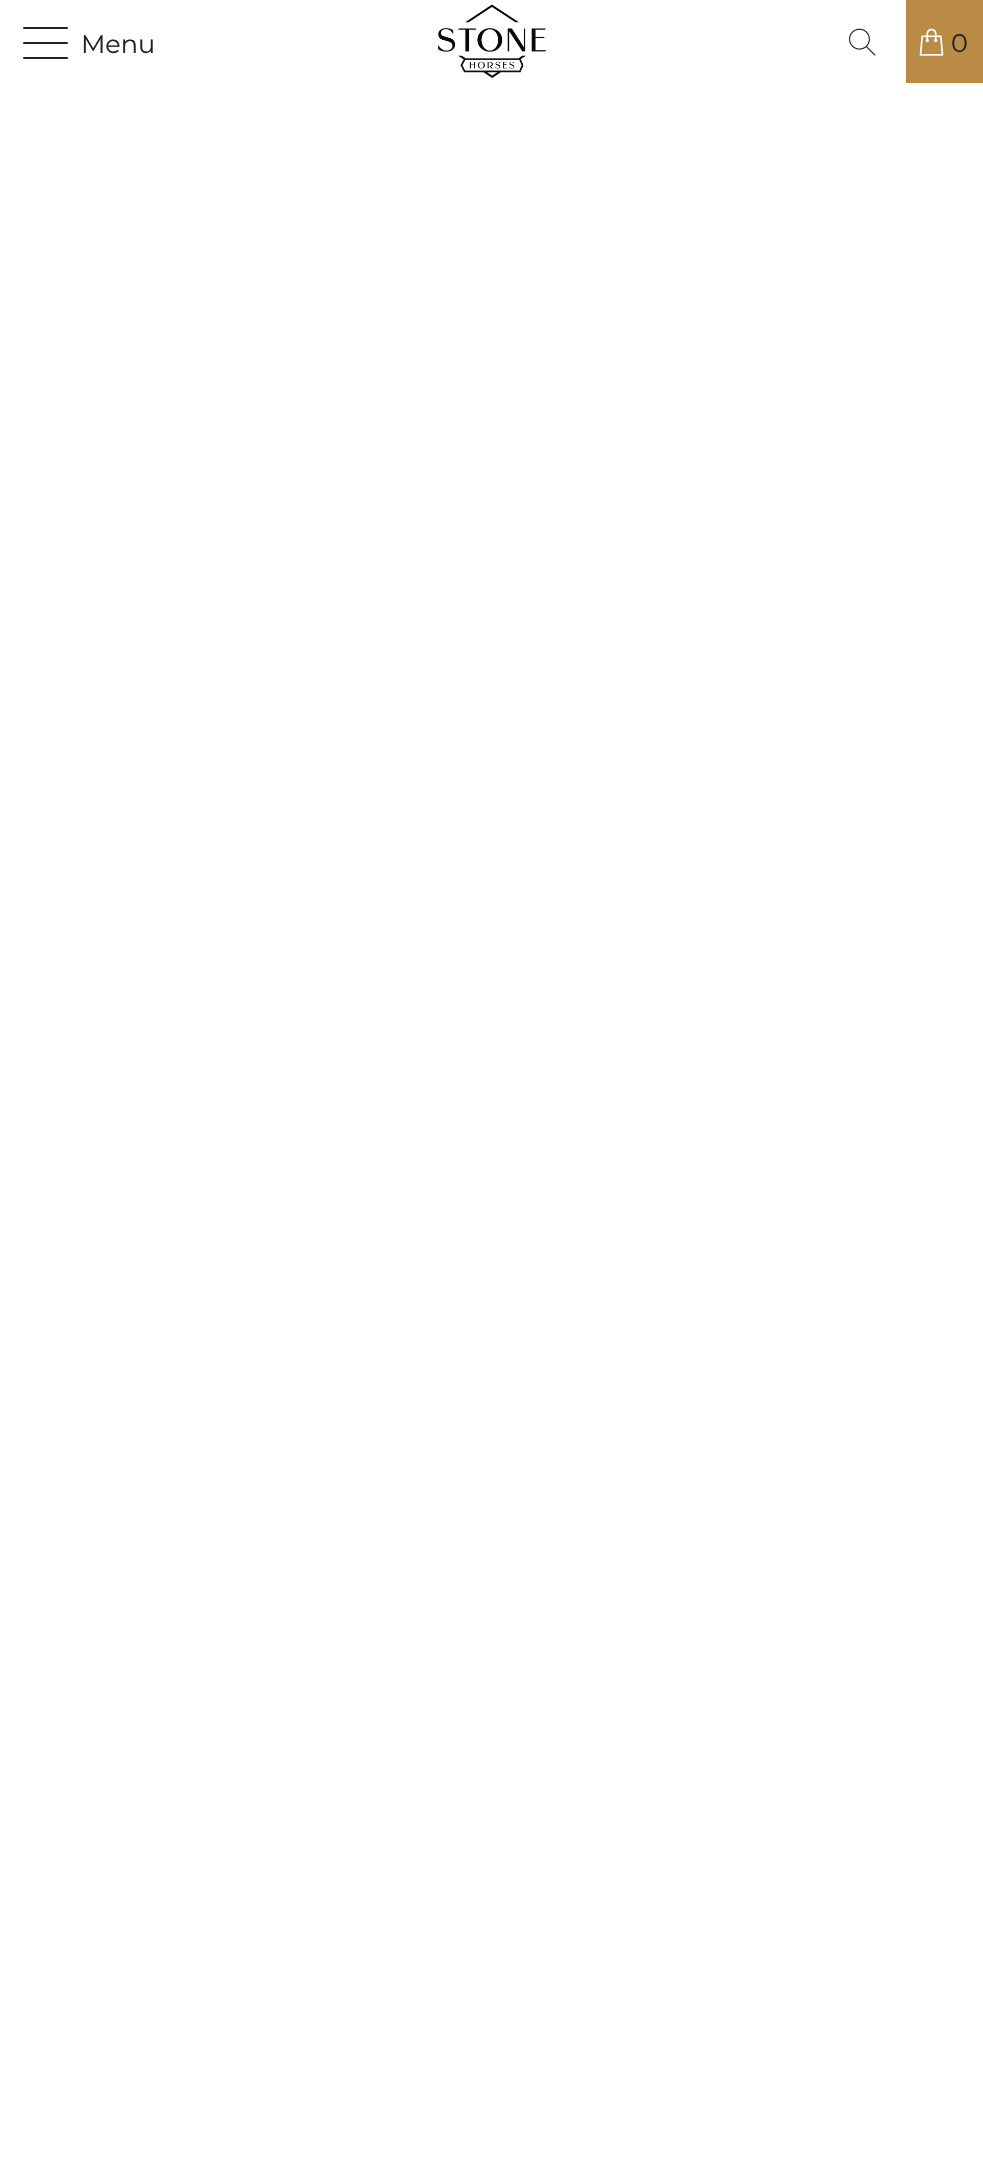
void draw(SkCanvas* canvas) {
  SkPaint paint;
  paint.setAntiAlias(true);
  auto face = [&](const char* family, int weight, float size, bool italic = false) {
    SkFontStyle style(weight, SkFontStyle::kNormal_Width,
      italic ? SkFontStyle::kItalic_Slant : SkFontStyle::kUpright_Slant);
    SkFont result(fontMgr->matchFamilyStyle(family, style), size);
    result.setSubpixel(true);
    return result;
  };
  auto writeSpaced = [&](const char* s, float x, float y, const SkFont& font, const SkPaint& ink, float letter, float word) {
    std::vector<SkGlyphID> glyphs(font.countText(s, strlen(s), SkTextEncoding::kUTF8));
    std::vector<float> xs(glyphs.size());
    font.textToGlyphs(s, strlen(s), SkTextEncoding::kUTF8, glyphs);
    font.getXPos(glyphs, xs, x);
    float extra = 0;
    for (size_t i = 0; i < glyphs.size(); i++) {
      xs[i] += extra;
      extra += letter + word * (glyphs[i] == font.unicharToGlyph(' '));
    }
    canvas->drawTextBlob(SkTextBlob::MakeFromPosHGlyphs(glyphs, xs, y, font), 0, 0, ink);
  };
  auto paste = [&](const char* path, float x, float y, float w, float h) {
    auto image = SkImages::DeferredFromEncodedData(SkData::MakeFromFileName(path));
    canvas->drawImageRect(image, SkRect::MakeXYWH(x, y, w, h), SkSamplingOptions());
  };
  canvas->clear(0xffffffff);
  paint.setColor(0xff212121);
  canvas->drawRoundRect(SkRect::MakeXYWH(23, 27, 45, 2), 1, 1, paint);
  canvas->drawRoundRect(SkRect::MakeXYWH(23, 42, 45, 2), 1, 1, paint);
  canvas->drawRoundRect(SkRect::MakeXYWH(23, 57, 45, 2), 1, 1, paint);
  paste("img/1.png", 438, 4, 108, 74);
  paste("img/2.png", 849, 28, 27, 28);
  paint.setColor(0xffb98b45);
  canvas->drawRect(SkRect::MakeXYWH(906, 0, 77, 83), paint);
  paste("img/3.png", 919, 28, 25, 28);
  auto f0 = face("Montserrat", 400, 25.5f);
  paint.setColor(0xff212121);
  canvas->drawString("Menu", 81, 53, f0, paint);
  writeSpaced("0", 951, 52, f0, paint, 2, 0);
}
